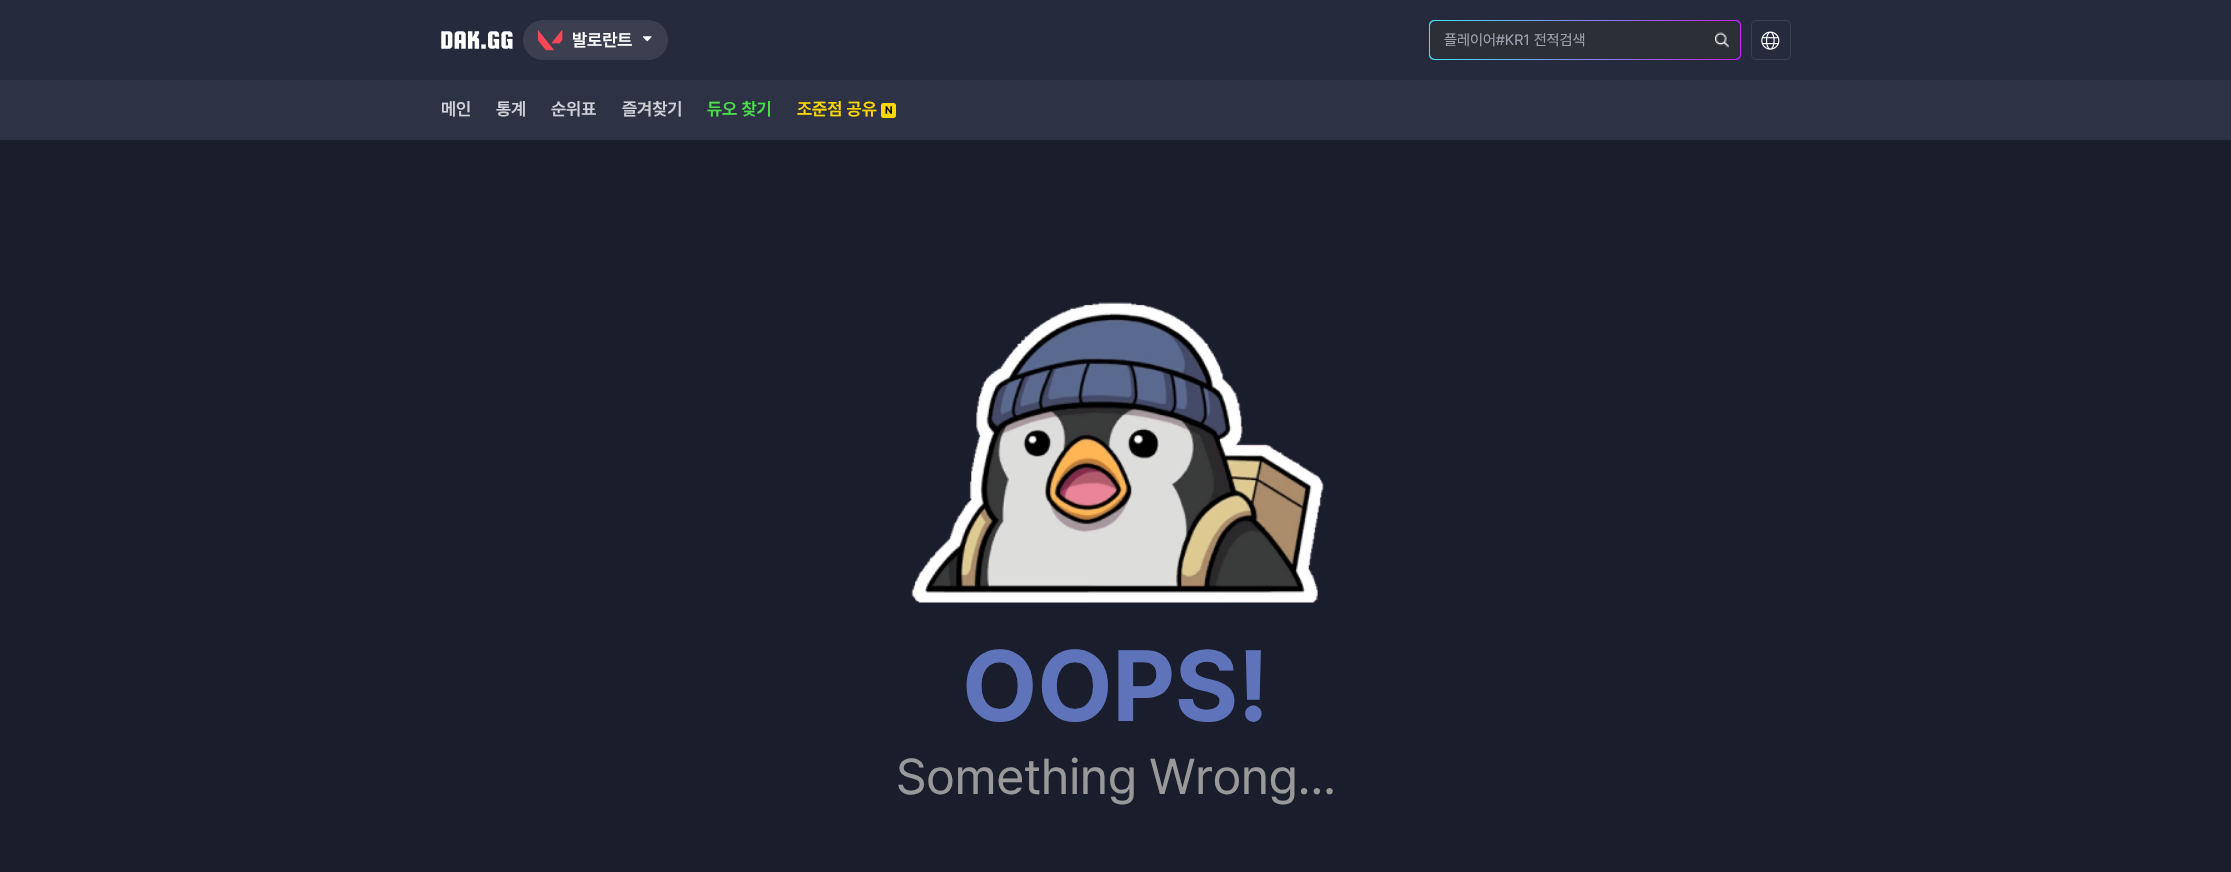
void draw(SkCanvas* canvas) {
  SkPaint paint;
  paint.setAntiAlias(true);
  auto face = [&](const char* family, int weight, float size, bool italic = false) {
    SkFontStyle style(weight, SkFontStyle::kNormal_Width,
      italic ? SkFontStyle::kItalic_Slant : SkFontStyle::kUpright_Slant);
    SkFont result(fontMgr->matchFamilyStyle(family, style), size);
    result.setSubpixel(true);
    return result;
  };
  auto paste = [&](const char* path, float x, float y, float w, float h) {
    auto image = SkImages::DeferredFromEncodedData(SkData::MakeFromFileName(path));
    canvas->drawImageRect(image, SkRect::MakeXYWH(x, y, w, h), SkSamplingOptions());
  };
  auto shape = [&](const char* data, bool evenOdd = false) {
    SkPath result = *SkParsePath::FromSVGString(data);
    if (evenOdd) result.setFillType(SkPathFillType::kEvenOdd);
    return result;
  };
  canvas->clear(0xff191d2c);
  paint.setColor(0xff252a3c);
  canvas->drawRect(SkRect::MakeXYWH(0, 0, 2231, 80), paint);
  paste("img/1.png", 441, 31, 72, 18);
  paint.setColor(0xff3b3f50);
  canvas->drawRoundRect(SkRect::MakeXYWH(523, 20, 145, 40), 20, 20, paint);
  paste("img/2.png", 538, 30, 25, 21);
  paste("img/3.png", 643, 36, 9, 6);
  {
    const SkColor colors[] = {0xff3fe6fd, 0xffc623ff};
    const float stops[] = {0, 1};
    const SkPoint ends[] = {{1429, 40}, {1741, 40}};
    paint.setShader(SkGradientShader::MakeLinear(ends, colors, stops, 2, SkTileMode::kClamp));
    paint.setAlpha(255);
  }
  canvas->drawRoundRect(SkRect::MakeXYWH(1429, 20, 312, 40), 5, 5, paint);
  paint.setShader(nullptr);
  paint.setColor(0xff252a3c);
  canvas->drawRoundRect(SkRect::MakeXYWH(1430, 21, 310, 38), 5, 5, paint);
  paint.setColor(0xff2d2f37);
  canvas->drawPath(shape("M1440 21H1705V59H1440C1434.5 59 1430 54.5 1430 49V31C1430 25.5 1434.5 21 1440 21Z"), paint);
  canvas->drawPath(shape("M1705 21H1730C1735.5 21 1740 25.5 1740 31V49C1740 54.5 1735.5 59 1730 59H1705Z"), paint);
  paste("img/4.png", 1715, 32, 14, 16);
  paint.setStroke(true);
  paint.setStrokeWidth(1);
  paint.setColor(0xff3b3f50);
  canvas->drawRoundRect(SkRect::MakeXYWH(1751.5f, 20.5f, 39, 39), 4.5f, 4.5f, paint);
  paste("img/5.png", 1761, 31, 19, 19);
  paint.setStroke(false);
  paint.setColor(0xff2d3245);
  canvas->drawRect(SkRect::MakeXYWH(0, 80, 2231, 60), paint);
  paste("img/6.png", 881, 103, 15, 15);
  paste("img/7.png", 911, 302, 413, 301);
  auto f0 = face("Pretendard", 600, 17.5f);
  paint.setColor(0xffffffff);
  canvas->drawString("발로란트", 572, 46, f0, paint);
  auto f1 = face("Pretendard", 400, 15);
  paint.setColor(0xff9ca3af);
  canvas->drawString("플레이어#KR1 전적검색", 1444, 45, f1, paint);
  paint.setColor(0xffcfd1d7);
  {
    const struct { const char* s; float x, y; } items[] = {
      {"메인", 441, 115},
      {"통계", 496, 115},
      {"순위표", 551, 115},
      {"즐겨찾기", 622, 115},
    };
    for (auto [s, x, y] : items) {
      canvas->drawString(s, x, y, f0, paint);
    }
  }
  paint.setColor(0xff49e049);
  canvas->drawString("듀오 찾기", 707, 115, f0, paint);
  paint.setColor(0xffffd700);
  canvas->drawString("조준점 공유", 797, 115, f0, paint);
  auto f2 = face("Pretendard", 700, 100);
  paint.setColor(0xff5e73ba);
  canvas->drawString("OOPS!", 962, 721, f2, paint);
  auto f3 = face("Pretendard", 400, 50);
  paint.setColor(0xff999999);
  canvas->drawString("Something Wrong...", 896, 794, f3, paint);
}
